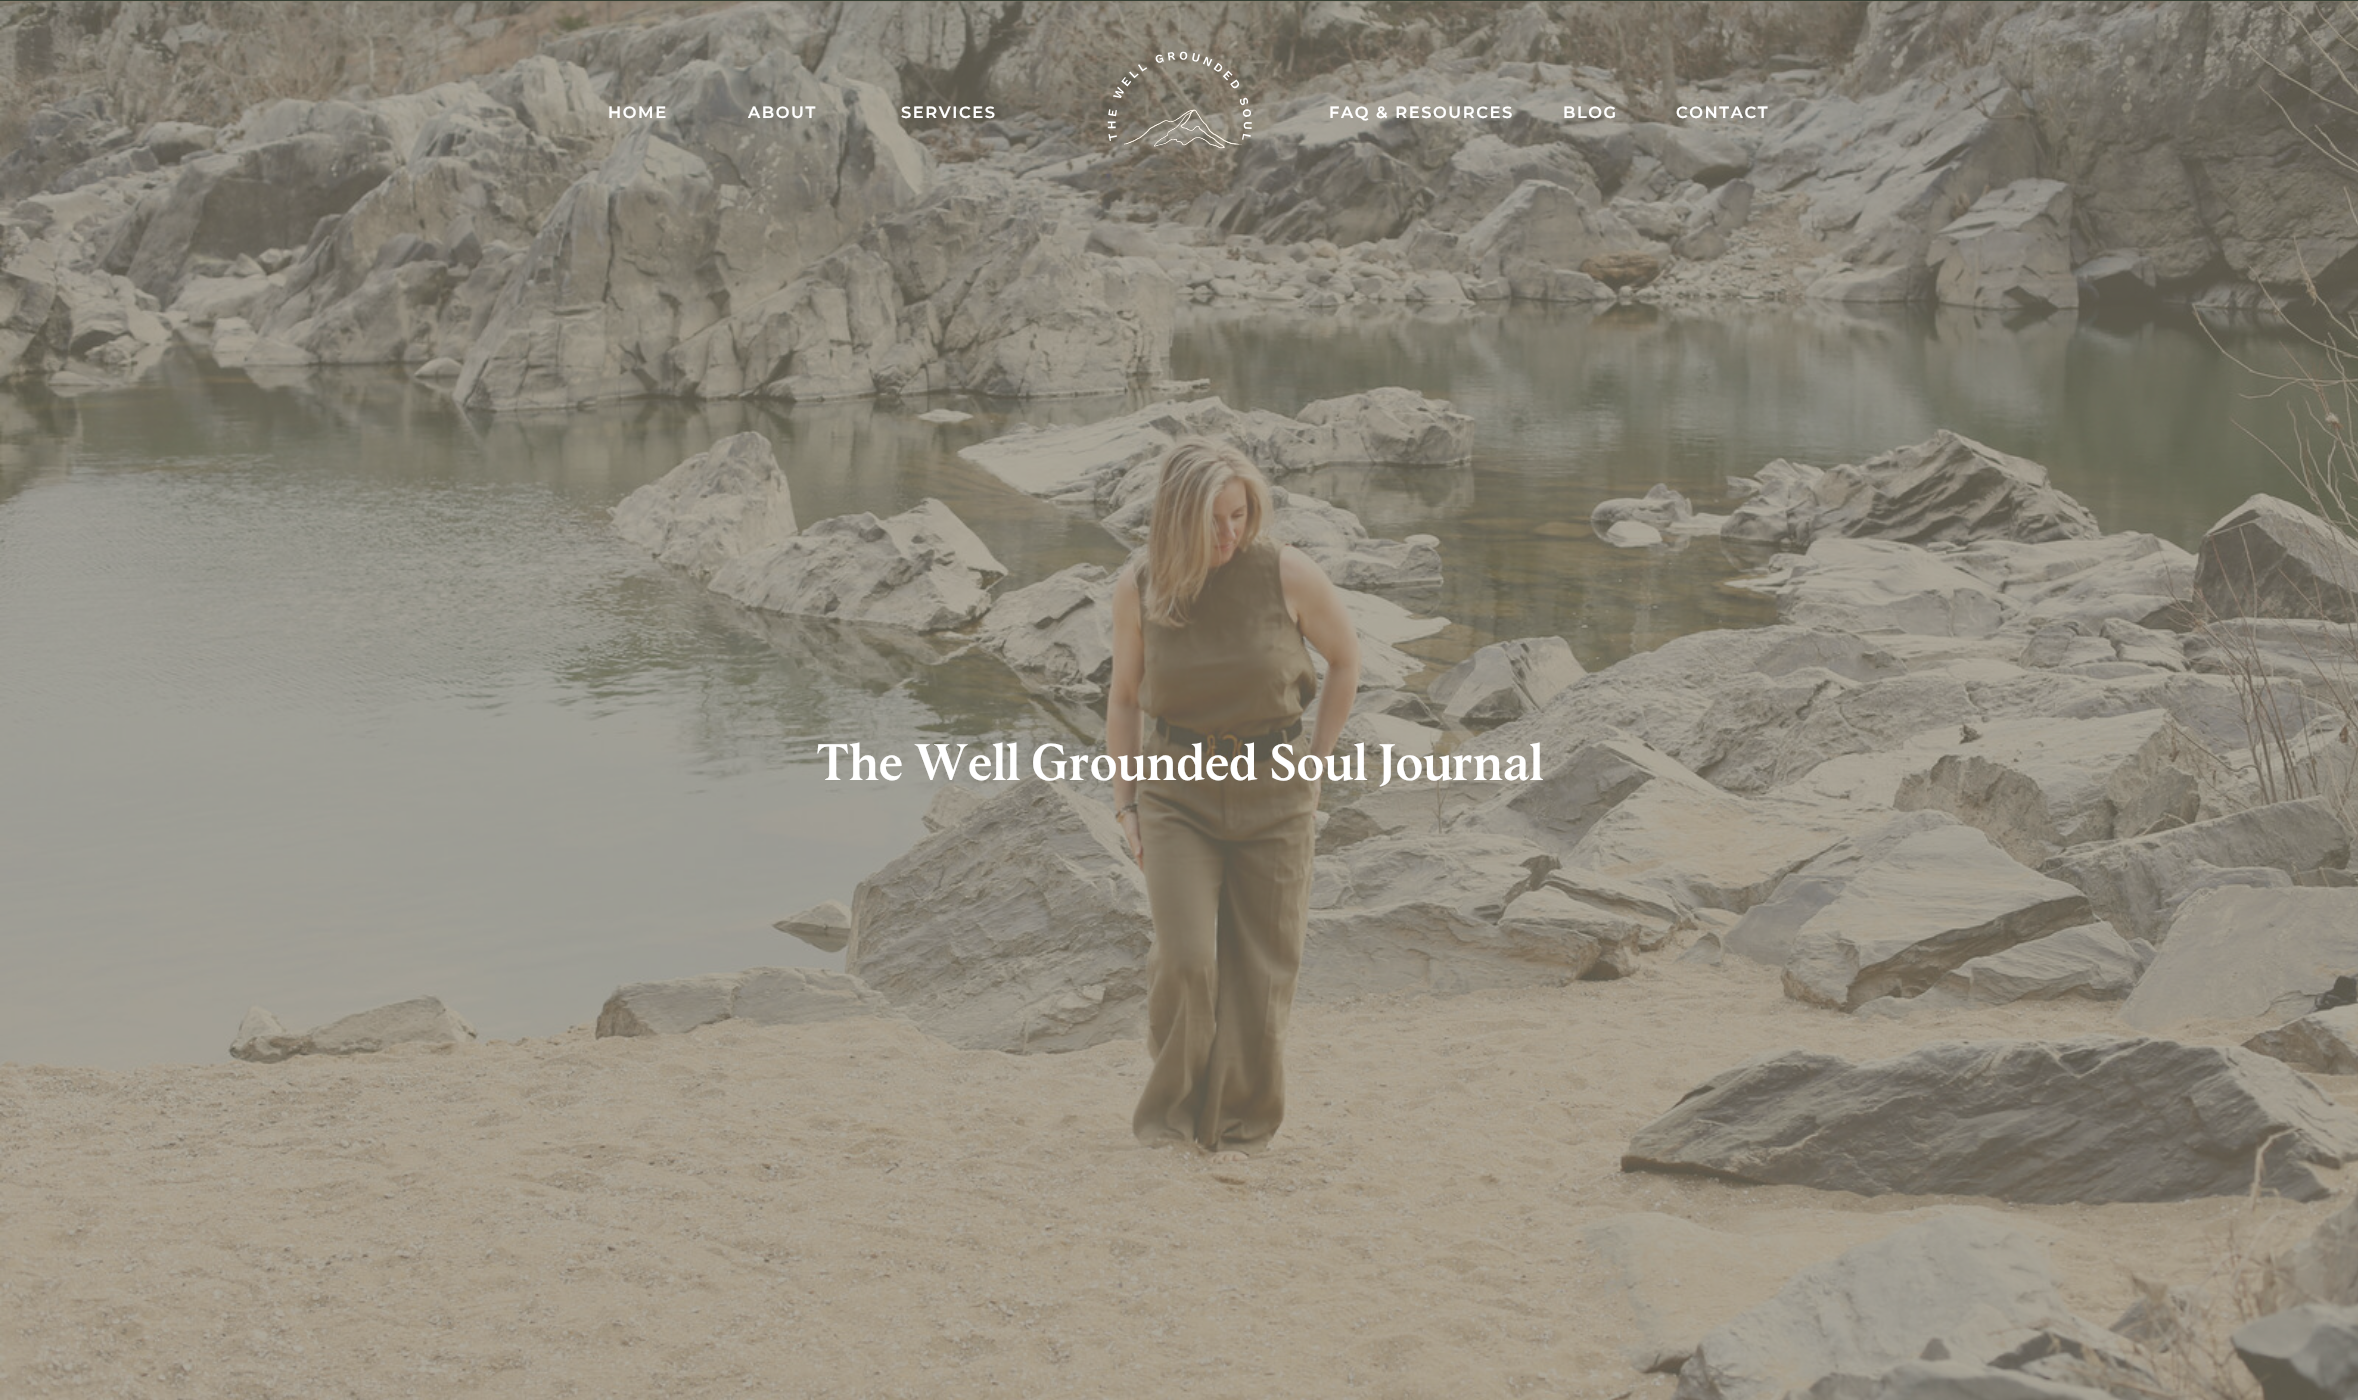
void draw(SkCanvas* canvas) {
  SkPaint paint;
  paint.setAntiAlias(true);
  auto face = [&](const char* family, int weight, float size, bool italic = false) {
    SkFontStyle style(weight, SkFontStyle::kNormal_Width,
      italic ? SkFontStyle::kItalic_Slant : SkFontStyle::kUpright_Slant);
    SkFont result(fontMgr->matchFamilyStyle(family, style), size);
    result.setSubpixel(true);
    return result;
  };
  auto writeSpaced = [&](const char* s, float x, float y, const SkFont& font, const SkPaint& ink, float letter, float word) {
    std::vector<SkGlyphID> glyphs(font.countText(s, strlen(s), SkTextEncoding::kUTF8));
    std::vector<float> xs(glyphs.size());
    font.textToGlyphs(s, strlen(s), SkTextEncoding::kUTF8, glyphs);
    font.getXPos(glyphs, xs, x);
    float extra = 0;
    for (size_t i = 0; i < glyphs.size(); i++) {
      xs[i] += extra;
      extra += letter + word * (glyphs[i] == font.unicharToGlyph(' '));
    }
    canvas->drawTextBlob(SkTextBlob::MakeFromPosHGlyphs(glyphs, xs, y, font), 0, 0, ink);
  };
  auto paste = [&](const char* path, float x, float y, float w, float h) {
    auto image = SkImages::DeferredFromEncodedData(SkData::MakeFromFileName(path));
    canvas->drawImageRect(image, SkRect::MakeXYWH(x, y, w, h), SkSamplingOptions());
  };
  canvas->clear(0xff847c68);
  paint.setColor(0xff364034);
  canvas->drawRect(SkRect::MakeXYWH(0, 0, 2358, 1), paint);
  paste("img/2.png", 0, 1, 2358, 1399);
  paste("img/1.png", 1107, 51, 145, 98);
  auto f0 = face("Montserrat", 600, 16.25f);
  paint.setColor(0xffffffff);
  {
    const struct { const char* s; float x, y; } items[] = {
      {"HOME", 608, 118},
      {"ABOUT", 748, 118},
      {"SERVICES", 901, 118},
      {"FAQ & RESOURCES", 1329, 118},
      {"BLOG", 1563, 118},
      {"CONTACT", 1676, 118},
    };
    for (auto [s, x, y] : items) {
      writeSpaced(s, x, y, f0, paint, 1.6f, 0);
    }
  }
  auto f1 = face("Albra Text", 500, 50);
  canvas->drawString("The Well Grounded Soul Journal", 816, 780, f1, paint);
}
